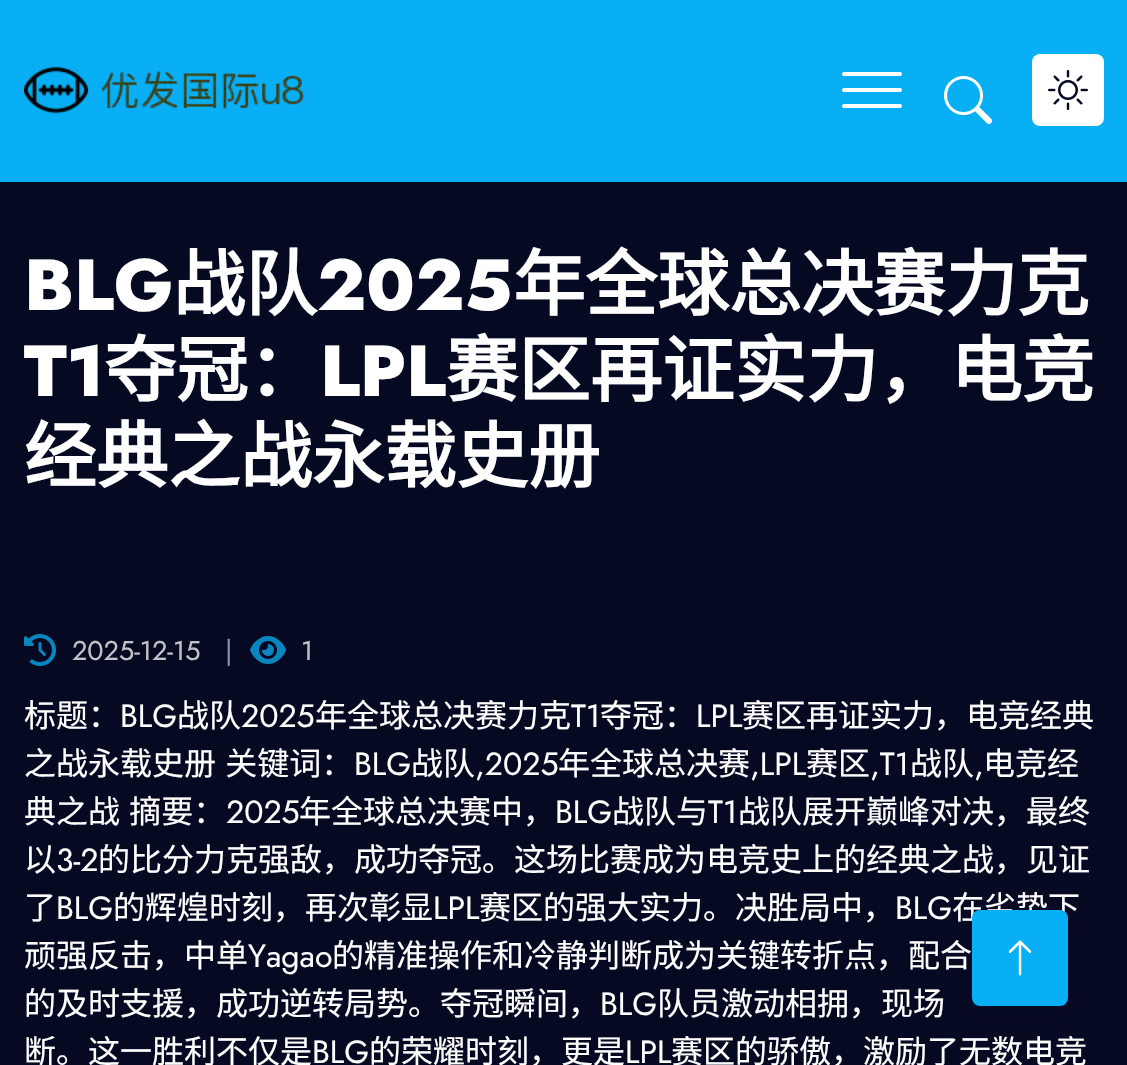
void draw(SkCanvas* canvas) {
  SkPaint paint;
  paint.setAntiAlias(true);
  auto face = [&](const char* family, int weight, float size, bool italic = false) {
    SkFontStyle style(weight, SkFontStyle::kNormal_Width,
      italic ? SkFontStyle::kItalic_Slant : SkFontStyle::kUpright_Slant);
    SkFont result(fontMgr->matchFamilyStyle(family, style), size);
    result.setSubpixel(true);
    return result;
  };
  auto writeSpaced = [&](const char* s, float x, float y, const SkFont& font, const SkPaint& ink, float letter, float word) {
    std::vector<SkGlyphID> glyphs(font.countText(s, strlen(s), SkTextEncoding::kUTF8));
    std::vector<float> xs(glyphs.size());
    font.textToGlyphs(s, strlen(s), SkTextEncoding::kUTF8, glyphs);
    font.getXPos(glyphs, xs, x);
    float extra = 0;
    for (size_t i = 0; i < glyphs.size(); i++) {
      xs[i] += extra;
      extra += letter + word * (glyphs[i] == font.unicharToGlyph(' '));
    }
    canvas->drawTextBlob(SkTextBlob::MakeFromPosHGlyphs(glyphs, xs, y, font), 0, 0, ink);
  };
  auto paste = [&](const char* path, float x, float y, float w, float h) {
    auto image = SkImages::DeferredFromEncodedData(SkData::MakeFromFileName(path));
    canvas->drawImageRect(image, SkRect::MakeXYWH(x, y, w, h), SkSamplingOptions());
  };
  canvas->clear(0xff060922);
  paint.setColor(0xff09aff4);
  canvas->drawRect(SkRect::MakeXYWH(0, 0, 1127, 182), paint);
  paste("img/1.png", 24, 66, 280, 48);
  paint.setColor(0xffffffff);
  canvas->drawRoundRect(SkRect::MakeXYWH(842, 72, 60, 4), 2, 2, paint);
  canvas->drawRoundRect(SkRect::MakeXYWH(842, 88, 60, 4), 2, 2, paint);
  canvas->drawRoundRect(SkRect::MakeXYWH(842, 104, 60, 4), 2, 2, paint);
  paste("img/2.png", 943, 76, 49, 48);
  canvas->drawRoundRect(SkRect::MakeXYWH(1032, 54, 72, 72), 8, 8, paint);
  paste("img/3.png", 1048, 70, 40, 40);
  paste("img/4.png", 24, 634, 32, 32);
  paste("img/5.png", 250, 636, 36, 28);
  paint.setColor(0x40060922);
  paint.setMaskFilter(SkMaskFilter::MakeBlur(kNormal_SkBlurStyle, 15));
  canvas->drawRoundRect(SkRect::MakeXYWH(972, 916, 96, 96), 8, 8, paint);
  paint.setMaskFilter(nullptr);
  auto f0 = face("Jost", 800, 72);
  paint.setColor(0xffffffff);
  canvas->drawString("BLG", 24, 310, f0, paint);
  auto f1 = face("Noto Sans CJK SC", 700, 72);
  canvas->drawString("战队", 173, 310, f1, paint);
  canvas->drawString("2025", 317, 310, f0, paint);
  canvas->drawString("年全球总决赛力克", 513, 310, f1, paint);
  canvas->drawString("T1", 24, 396, f0, paint);
  canvas->drawString("夺冠：", 104, 396, f1, paint);
  canvas->drawString("LPL", 320, 396, f0, paint);
  canvas->drawString("赛区再证实力，电竞", 446, 396, f1, paint);
  canvas->drawString("经典之战永载史册", 24, 482, f1, paint);
  auto f2 = face("Jost", 400, 27);
  paint.setColor(0xffc1c2c8);
  canvas->drawString("2025-12-15", 72, 660, f2, paint);
  paint.setColor(0xff92939e);
  canvas->drawString("|", 225, 660, f2, paint);
  paint.setColor(0xffc1c2c8);
  canvas->drawString("1", 301, 660, f2, paint);
  auto f3 = face("Noto Sans CJK SC", 400, 32);
  paint.setColor(0xffffffff);
  canvas->drawString("标题：", 24, 727, f3, paint);
  auto f4 = face("Jost", 400, 32);
  canvas->drawString("BLG", 120, 727, f4, paint);
  canvas->drawString("战队", 177, 727, f3, paint);
  canvas->drawString("2025", 241, 727, f4, paint);
  canvas->drawString("年全球总决赛力克", 315, 727, f3, paint);
  canvas->drawString("T1", 571, 727, f4, paint);
  canvas->drawString("夺冠：", 600, 727, f3, paint);
  canvas->drawString("LPL", 696, 727, f4, paint);
  canvas->drawString("赛区再证实力，电竞经典", 742, 727, f3, paint);
  writeSpaced("之战永载史册 关键词：", 24, 775, f3, paint, 0, 2);
  canvas->drawString("BLG", 354, 775, f4, paint);
  canvas->drawString("战队", 411, 775, f3, paint);
  canvas->drawString(",2025", 475, 775, f4, paint);
  canvas->drawString("年全球总决赛", 558, 775, f3, paint);
  canvas->drawString(",LPL", 750, 775, f4, paint);
  canvas->drawString("赛区", 806, 775, f3, paint);
  canvas->drawString(",T1", 870, 775, f4, paint);
  canvas->drawString("战队", 910, 775, f3, paint);
  canvas->drawString(",", 974, 775, f4, paint);
  canvas->drawString("电竞经", 983, 775, f3, paint);
  writeSpaced("典之战 摘要：", 24, 823, f3, paint, 0, 2);
  canvas->drawString("2025", 226, 823, f4, paint);
  canvas->drawString("年全球总决赛中，", 299, 823, f3, paint);
  canvas->drawString("BLG", 555, 823, f4, paint);
  canvas->drawString("战队与", 612, 823, f3, paint);
  canvas->drawString("T1", 708, 823, f4, paint);
  canvas->drawString("战队展开巅峰对决，最终", 738, 823, f3, paint);
  canvas->drawString("以", 24, 871, f3, paint);
  canvas->drawString("3-2", 56, 871, f4, paint);
  canvas->drawString("的比分力克强敌，成功夺冠。这场比赛成为电竞史上的经典之战，见证", 98, 871, f3, paint);
  canvas->drawString("了", 24, 919, f3, paint);
  canvas->drawString("BLG", 56, 919, f4, paint);
  canvas->drawString("的辉煌时刻，再次彰显", 113, 919, f3, paint);
  canvas->drawString("LPL", 433, 919, f4, paint);
  canvas->drawString("赛区的强大实力。决胜局中，", 479, 919, f3, paint);
  canvas->drawString("BLG", 895, 919, f4, paint);
  canvas->drawString("在劣势下", 952, 919, f3, paint);
  canvas->drawString("顽强反击，中单", 24, 967, f3, paint);
  canvas->drawString("Yagao", 248, 967, f4, paint);
  canvas->drawString("的精准操作和冷静判断成为关键转折点，配合", 332, 967, f3, paint);
  canvas->drawString("的及时支援，成功逆转局势。夺冠瞬间，", 24, 1015, f3, paint);
  canvas->drawString("BLG", 600, 1015, f4, paint);
  canvas->drawString("队员激动相拥，现场", 657, 1015, f3, paint);
  canvas->drawString("断。这一胜利不仅是", 24, 1063, f3, paint);
  canvas->drawString("BLG", 312, 1063, f4, paint);
  canvas->drawString("的荣耀时刻，更是", 369, 1063, f3, paint);
  canvas->drawString("LPL", 625, 1063, f4, paint);
  canvas->drawString("赛区的骄傲，激励了无数电竞", 671, 1063, f3, paint);
  paint.setColor(0xff09aff4);
  canvas->drawRoundRect(SkRect::MakeXYWH(972, 910, 96, 96), 8, 8, paint);
  paste("img/6.png", 1008, 940, 24, 36);
}
